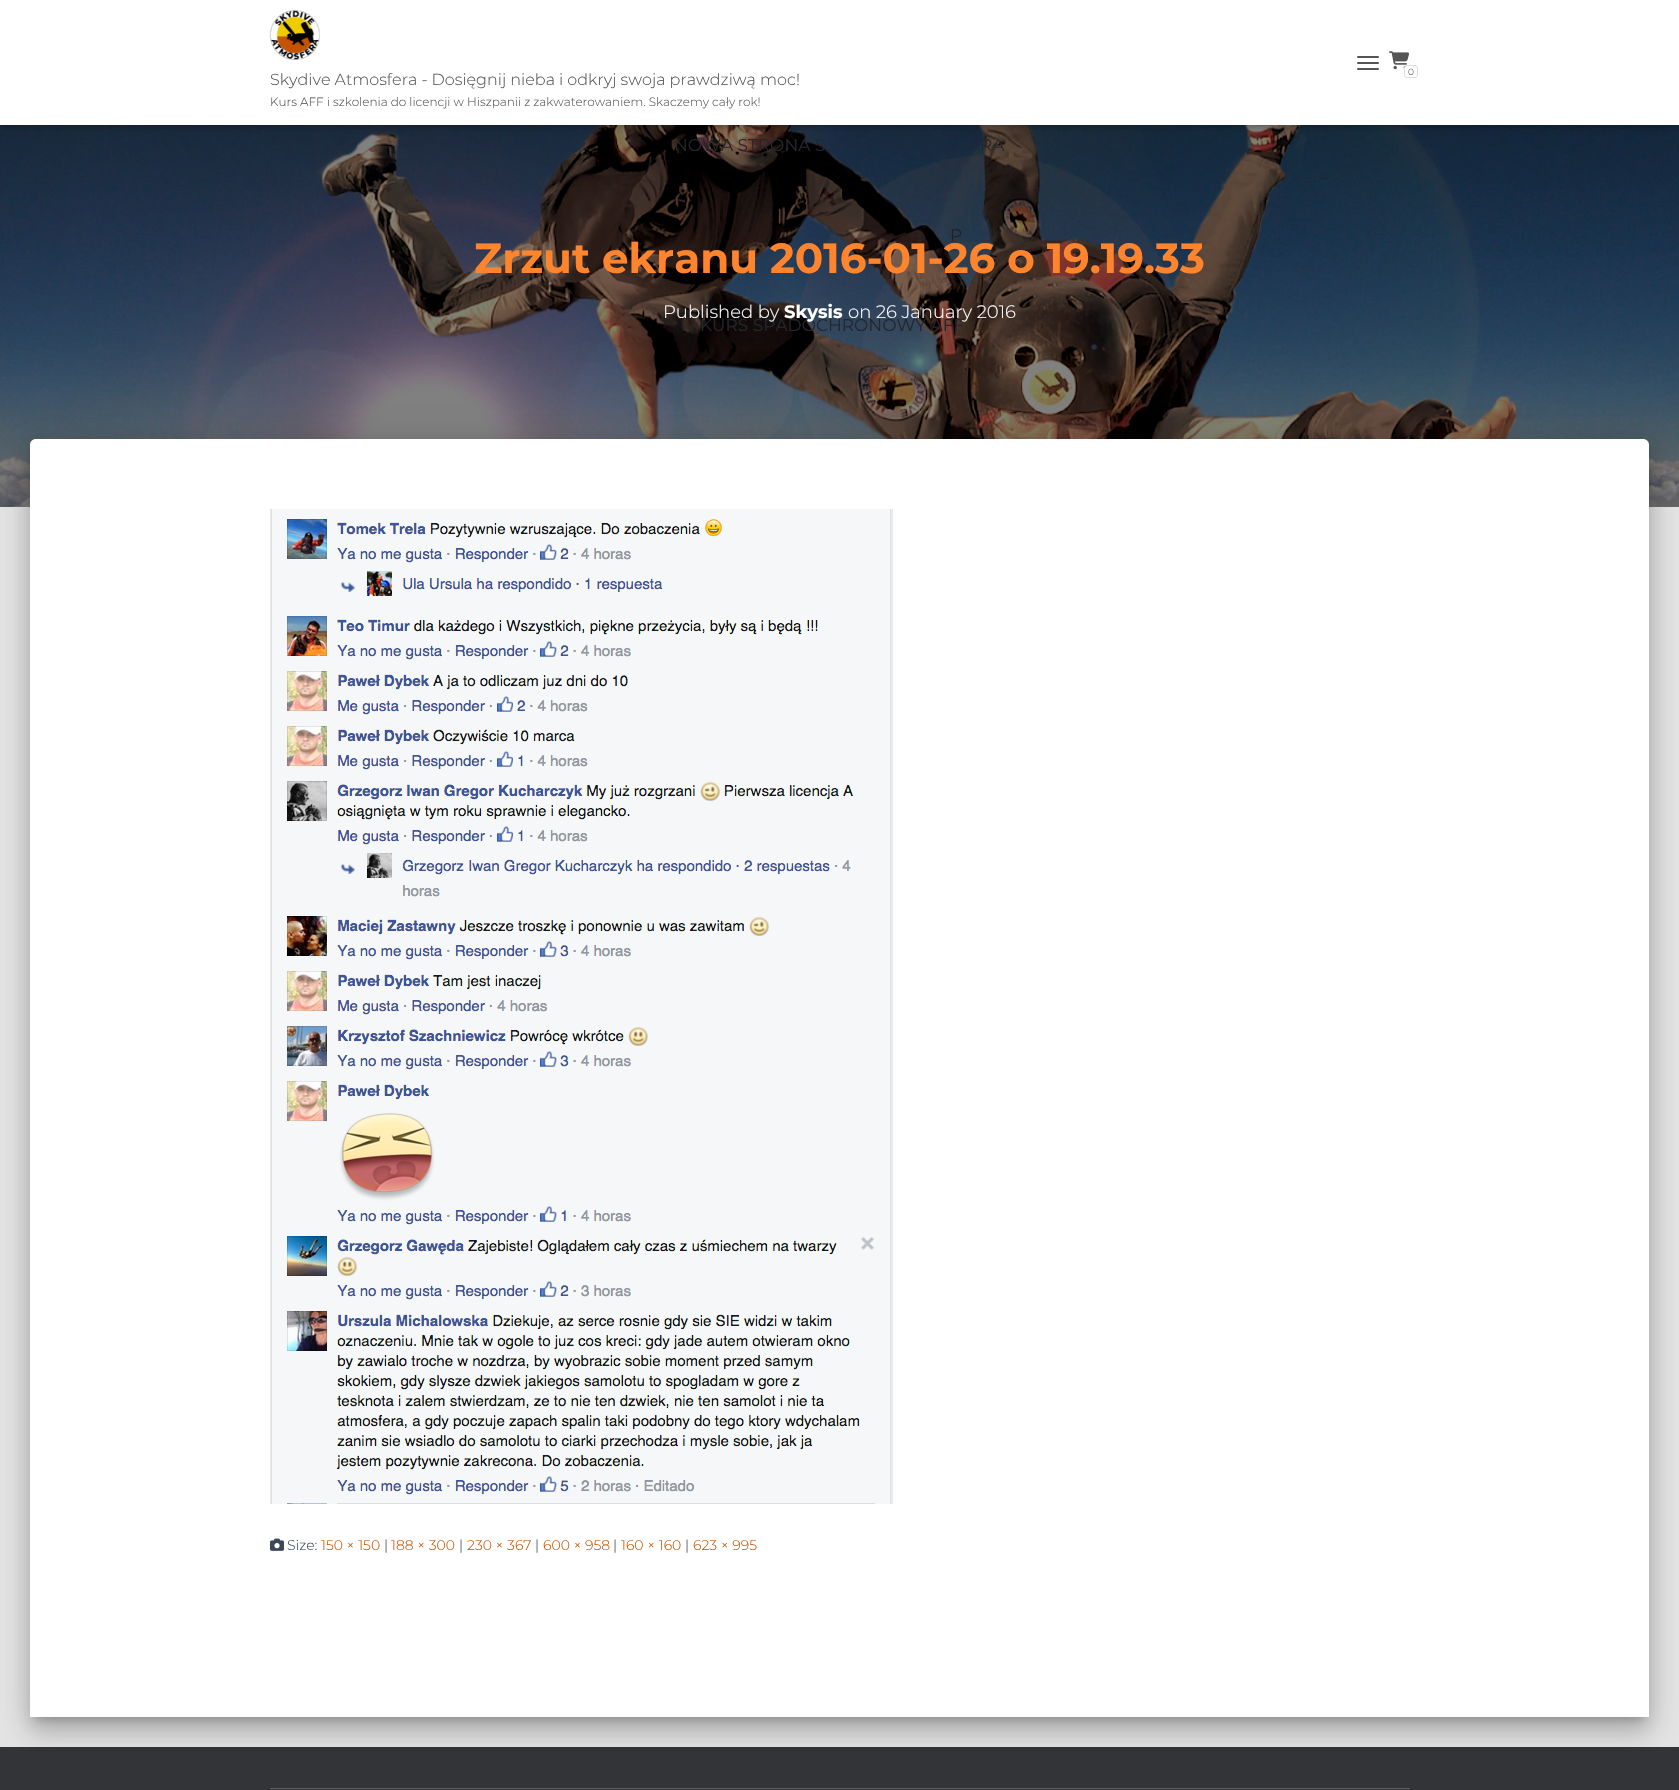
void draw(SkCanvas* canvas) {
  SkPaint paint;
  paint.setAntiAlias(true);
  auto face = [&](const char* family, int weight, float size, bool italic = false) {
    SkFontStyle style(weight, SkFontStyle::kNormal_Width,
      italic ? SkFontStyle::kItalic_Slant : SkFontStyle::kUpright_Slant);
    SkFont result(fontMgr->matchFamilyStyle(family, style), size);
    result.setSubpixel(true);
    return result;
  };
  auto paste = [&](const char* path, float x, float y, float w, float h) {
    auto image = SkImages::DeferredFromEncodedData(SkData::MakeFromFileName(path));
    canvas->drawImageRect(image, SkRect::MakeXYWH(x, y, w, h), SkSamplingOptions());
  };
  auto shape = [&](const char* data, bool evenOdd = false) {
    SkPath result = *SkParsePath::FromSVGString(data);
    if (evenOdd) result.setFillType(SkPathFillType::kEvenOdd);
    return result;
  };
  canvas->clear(0xffe5e5e5);
  paste("img/3.png", 0, 125, 1679, 382);
  paint.setColor(0x1a000000);
  paint.setMaskFilter(SkMaskFilter::MakeBlur(kNormal_SkBlurStyle, 2.5f));
  canvas->drawRect(SkRect::MakeXYWH(2, 6, 1675, 121), paint);
  paint.setMaskFilter(nullptr);
  paint.setColor(0x1f000000);
  paint.setMaskFilter(SkMaskFilter::MakeBlur(kNormal_SkBlurStyle, 5));
  canvas->drawRect(SkRect::MakeXYWH(0, 1, 1679, 125), paint);
  paint.setMaskFilter(nullptr);
  paint.setColor(0x6b000000);
  paint.setMaskFilter(SkMaskFilter::MakeBlur(kNormal_SkBlurStyle, 5));
  canvas->drawRect(SkRect::MakeXYWH(6, 7, 1667, 113), paint);
  paint.setMaskFilter(nullptr);
  paint.setColor(0xffffffff);
  canvas->drawRect(SkRect::MakeXYWH(0, 0, 1679, 125), paint);
  paint.setColor(0xff555555);
  canvas->drawRoundRect(SkRect::MakeXYWH(1357, 56, 22, 2), 1, 1, paint);
  canvas->drawRoundRect(SkRect::MakeXYWH(1357, 62, 22, 2), 1, 1, paint);
  canvas->drawRoundRect(SkRect::MakeXYWH(1357, 68, 22, 2), 1, 1, paint);
  paste("img/1.png", 1389, 51, 20, 19);
  paint.setColor(0xffffffff);
  canvas->drawRoundRect(SkRect::MakeXYWH(1404.5f, 65.5f, 13, 12), 2.5f, 2.5f, paint);
  paint.setStroke(true);
  paint.setStrokeWidth(1);
  paint.setColor(0xffdddddd);
  canvas->drawRoundRect(SkRect::MakeXYWH(1404.5f, 65.5f, 13, 12), 2.5f, 2.5f, paint);
  paste("img/2.png", 269, 10, 51, 50);
  paint.setStroke(false);
  paint.setColor(0x33000000);
  paint.setMaskFilter(SkMaskFilter::MakeBlur(kNormal_SkBlurStyle, 5));
  canvas->drawRoundRect(SkRect::MakeXYWH(35, 452, 1609, 1268), 1, 1, paint);
  paint.setMaskFilter(nullptr);
  paint.setColor(0xff323437);
  canvas->drawRect(SkRect::MakeXYWH(0, 1747, 1679, 43), paint);
  paint.setColor(0x1f000000);
  paint.setMaskFilter(SkMaskFilter::MakeBlur(kNormal_SkBlurStyle, 15));
  canvas->drawRoundRect(SkRect::MakeXYWH(25, 440, 1629, 1288), 11, 11, paint);
  paint.setMaskFilter(nullptr);
  paint.setColor(0x24000000);
  paint.setMaskFilter(SkMaskFilter::MakeBlur(kNormal_SkBlurStyle, 12));
  canvas->drawRoundRect(SkRect::MakeXYWH(28, 453, 1623, 1282), 8, 8, paint);
  paint.setMaskFilter(nullptr);
  paint.setColor(0xffffffff);
  canvas->drawPath(shape("M36 439H1643C1646.5 439 1649 441.5 1649 445V1717H30V445C30 441.5 32.5 439 36 439Z"), paint);
  paste("img/4.png", 270, 509, 623, 995);
  paste("img/5.png", 270, 1538, 14, 13);
  paint.setColor(0xff5e5e5e);
  canvas->drawRect(SkRect::MakeXYWH(270, 1788, 1140, 1), paint);
  auto f0 = face("Montserrat", 300, 9);
  paint.setColor(0xff555555);
  canvas->drawString("0", 1408, 75, f0, paint);
  auto f1 = face("Montserrat", 300, 16);
  canvas->drawString("Skydive Atmosfera - Dosięgnij nieba i odkryj swoja prawdziwą moc!", 270, 85, f1, paint);
  auto f2 = face("Montserrat", 300, 12);
  canvas->drawString("Kurs AFF i szkolenia do licencji w Hiszpanii z zakwaterowaniem. Skaczemy cały rok!", 270, 106, f2, paint);
  auto f3 = face("Montserrat", 400, 17);
  paint.setColor(0xff24262d);
  canvas->drawString("NOWA STRONA S", 674, 151, f3, paint);
  canvas->drawString("RA", 980, 151, f3, paint);
  paint.setColor(0xff232125);
  canvas->drawString("P", 950, 241, f3, paint);
  paint.setColor(0xff24262d);
  canvas->drawString("KURS SPADOCHRONOWY AFF", 700, 331, f3, paint);
  auto f4 = face("Montserrat", 700, 42);
  paint.setColor(0xfffe842e);
  canvas->drawString("Zrzut ekranu 2016-01-26 o 19.19.33", 474, 273, f4, paint);
  auto f5 = face("Montserrat", 300, 18);
  paint.setColor(0xffffffff);
  canvas->drawString("Published by", 663, 318, f5, paint);
  auto f6 = face("Montserrat", 700, 18);
  canvas->drawString("Skysis", 784, 318, f6, paint);
  canvas->drawString("on 26 January 2016", 848, 318, f5, paint);
  auto f7 = face("Montserrat", 300, 14);
  paint.setColor(0xff3c4858);
  canvas->drawString("Size:", 287, 1550, f7, paint);
  paint.setColor(0xffc45301);
  canvas->drawString("150 × 150", 321, 1550, f7, paint);
  paint.setColor(0xff3c4858);
  canvas->drawString("|", 384, 1550, f7, paint);
  paint.setColor(0xffc45301);
  canvas->drawString("188 × 300", 391, 1550, f7, paint);
  paint.setColor(0xff3c4858);
  canvas->drawString("|", 459, 1550, f7, paint);
  paint.setColor(0xffc45301);
  canvas->drawString("230 × 367", 467, 1550, f7, paint);
  paint.setColor(0xff3c4858);
  canvas->drawString("|", 535, 1550, f7, paint);
  paint.setColor(0xffc45301);
  canvas->drawString("600 × 958", 543, 1550, f7, paint);
  paint.setColor(0xff3c4858);
  canvas->drawString("|", 613, 1550, f7, paint);
  paint.setColor(0xffc45301);
  canvas->drawString("160 × 160", 621, 1550, f7, paint);
  paint.setColor(0xff3c4858);
  canvas->drawString("|", 685, 1550, f7, paint);
  paint.setColor(0xffc45301);
  canvas->drawString("623 × 995", 693, 1550, f7, paint);
}
